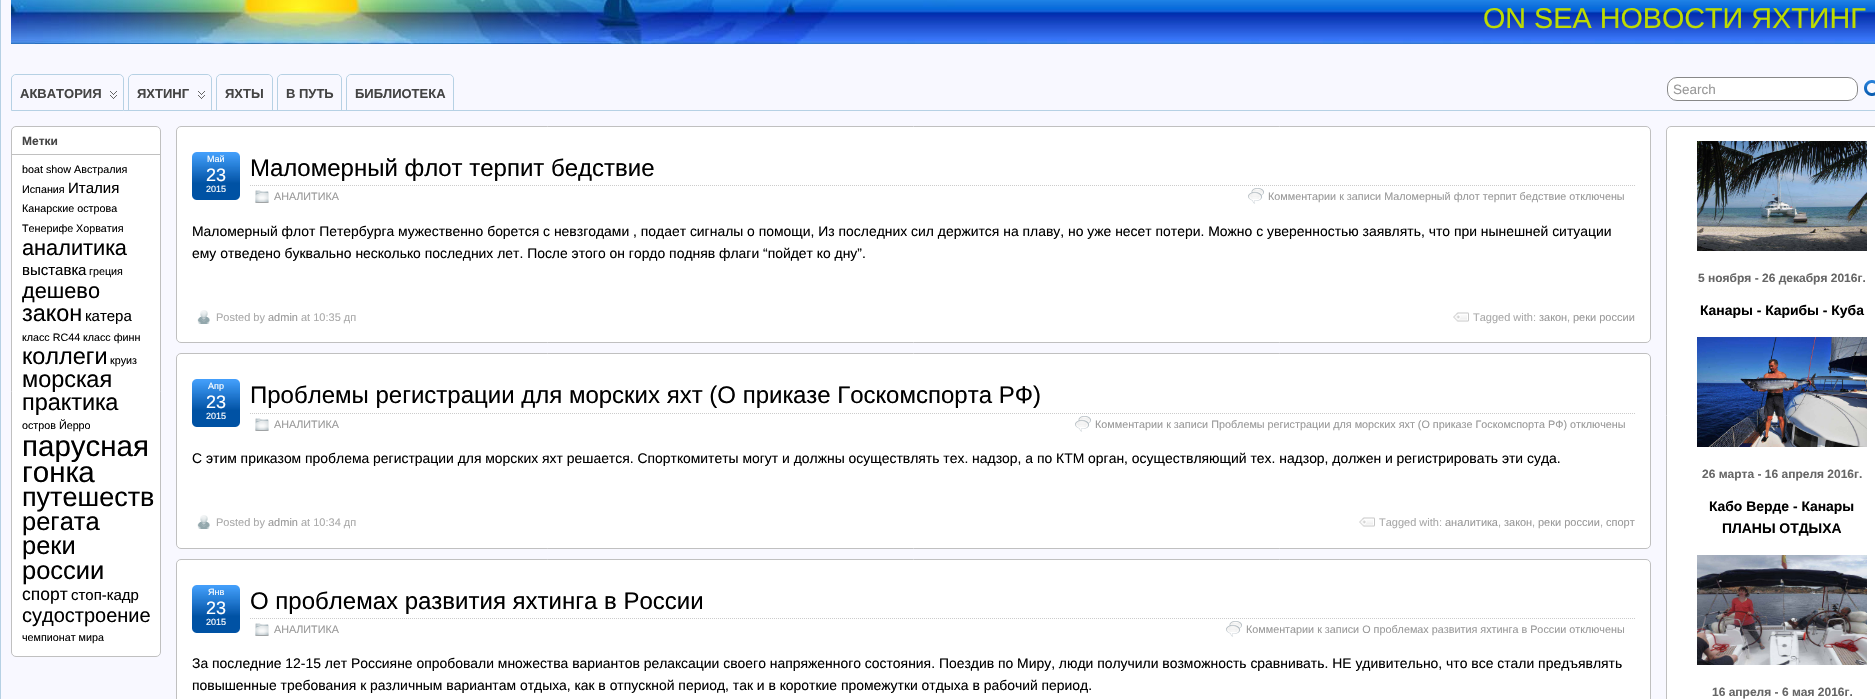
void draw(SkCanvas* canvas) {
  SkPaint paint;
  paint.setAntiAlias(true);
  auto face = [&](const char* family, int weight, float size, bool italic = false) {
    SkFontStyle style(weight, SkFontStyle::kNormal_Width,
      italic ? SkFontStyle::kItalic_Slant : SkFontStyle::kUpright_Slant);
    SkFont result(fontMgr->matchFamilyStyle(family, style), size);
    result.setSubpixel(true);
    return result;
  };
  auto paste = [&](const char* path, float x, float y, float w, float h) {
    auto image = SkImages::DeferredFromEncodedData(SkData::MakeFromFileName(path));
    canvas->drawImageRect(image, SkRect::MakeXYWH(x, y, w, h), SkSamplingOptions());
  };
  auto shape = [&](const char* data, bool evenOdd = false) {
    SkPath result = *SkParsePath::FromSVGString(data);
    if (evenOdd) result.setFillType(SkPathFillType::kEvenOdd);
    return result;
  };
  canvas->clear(0xfff8f8ff);
  paint.setStroke(true);
  paint.setStrokeWidth(1);
  paint.setColor(0xffb6d1e4);
  canvas->drawRect(SkRect::MakeXYWH(0.5f, -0.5f, 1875, 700), paint);
  paste("img/1.png", 11, 0, 1864, 44);
  paint.setStroke(false);
  canvas->drawRect(SkRect::MakeXYWH(124, 110, 1751, 1), paint);
  paint.setStroke(true);
  canvas->drawPath(shape("M16 74.5H119C121.5 74.5 123.5 76.5 123.5 79V110.5H11.5V79C11.5 76.5 13.5 74.5 16 74.5Z"), paint);
  paint.setStroke(false);
  paint.setColor(0xfff8f8ff);
  canvas->drawPath(shape("M17 75H118C121 75 123 77 123 80V110H12V80C12 77 14 75 17 75Z"), paint);
  paste("img/2.png", 110, 91, 7, 8);
  paint.setStroke(true);
  paint.setColor(0xffb6d1e4);
  canvas->drawPath(shape("M133 74.5H207C209.5 74.5 211.5 76.5 211.5 79V110.5H128.5V79C128.5 76.5 130.5 74.5 133 74.5Z"), paint);
  paint.setStroke(false);
  paint.setColor(0xfff8f8ff);
  canvas->drawPath(shape("M134 75H206C209 75 211 77 211 80V110H129V80C129 77 131 75 134 75Z"), paint);
  paste("img/2.png", 198, 91, 7, 8);
  paint.setStroke(true);
  paint.setColor(0xffb6d1e4);
  canvas->drawPath(shape("M221 74.5H268C270.5 74.5 272.5 76.5 272.5 79V110.5H216.5V79C216.5 76.5 218.5 74.5 221 74.5Z"), paint);
  paint.setStroke(false);
  paint.setColor(0xfff8f8ff);
  canvas->drawPath(shape("M222 75H267C270 75 272 77 272 80V110H217V80C217 77 219 75 222 75Z"), paint);
  paint.setStroke(true);
  paint.setColor(0xffb6d1e4);
  canvas->drawPath(shape("M282 74.5H337C339.5 74.5 341.5 76.5 341.5 79V110.5H277.5V79C277.5 76.5 279.5 74.5 282 74.5Z"), paint);
  paint.setStroke(false);
  paint.setColor(0xfff8f8ff);
  canvas->drawPath(shape("M283 75H336C339 75 341 77 341 80V110H278V80C278 77 280 75 283 75Z"), paint);
  paint.setStroke(true);
  paint.setColor(0xffb6d1e4);
  canvas->drawPath(shape("M351 74.5H449C451.5 74.5 453.5 76.5 453.5 79V110.5H346.5V79C346.5 76.5 348.5 74.5 351 74.5Z"), paint);
  paint.setStroke(false);
  paint.setColor(0xfff8f8ff);
  canvas->drawPath(shape("M352 75H448C451 75 453 77 453 80V110H347V80C347 77 349 75 352 75Z"), paint);
  paint.setColor(0xffffffff);
  canvas->drawRoundRect(SkRect::MakeXYWH(1667.5f, 77.5f, 190, 23), 9.5f, 9.5f, paint);
  paint.setStroke(true);
  paint.setColor(0xff888888);
  canvas->drawRoundRect(SkRect::MakeXYWH(1667.5f, 77.5f, 190, 23), 9.5f, 9.5f, paint);
  paste("img/3.png", 1864, 80, 11, 16);
  paint.setStroke(false);
  paint.setColor(0xffffffff);
  canvas->drawRoundRect(SkRect::MakeXYWH(11.5f, 126.5f, 149, 530), 4.5f, 4.5f, paint);
  paint.setStroke(true);
  paint.setColor(0xffc0c0c0);
  canvas->drawRoundRect(SkRect::MakeXYWH(11.5f, 126.5f, 149, 530), 4.5f, 4.5f, paint);
  paint.setStroke(false);
  canvas->drawRect(SkRect::MakeXYWH(12, 154, 148, 1), paint);
  paint.setColor(0xffffffff);
  canvas->drawRoundRect(SkRect::MakeXYWH(176.5f, 126.5f, 1474, 216), 4.5f, 4.5f, paint);
  paint.setStroke(true);
  paint.setColor(0xffc0c0c0);
  canvas->drawRoundRect(SkRect::MakeXYWH(176.5f, 126.5f, 1474, 216), 4.5f, 4.5f, paint);
  paste("img/4.png", 192, 152, 48, 48);
  paint.setColor(0xffcccccc);
  paint.setPathEffect(SkDashPathEffect::Make({{1, 1}}, 0));
  canvas->drawPath(shape("M250 185.5H1635"), paint);
  paint.setPathEffect(nullptr);
  paste("img/5.png", 255, 190, 14, 13);
  paste("img/6.png", 1248, 188, 16, 16);
  paste("img/7.png", 197, 310, 13, 14);
  paste("img/8.png", 1453, 312, 16, 10);
  paint.setStroke(false);
  paint.setColor(0xffffffff);
  canvas->drawRoundRect(SkRect::MakeXYWH(176.5f, 353.5f, 1474, 195), 4.5f, 4.5f, paint);
  paint.setStroke(true);
  paint.setColor(0xffc0c0c0);
  canvas->drawRoundRect(SkRect::MakeXYWH(176.5f, 353.5f, 1474, 195), 4.5f, 4.5f, paint);
  paste("img/4.png", 192, 379, 48, 48);
  paint.setColor(0xffcccccc);
  paint.setPathEffect(SkDashPathEffect::Make({{1, 1}}, 0));
  canvas->drawPath(shape("M250 413.5H1635"), paint);
  paint.setPathEffect(nullptr);
  paste("img/5.png", 255, 418, 14, 13);
  paste("img/6.png", 1075, 416, 16, 16);
  paste("img/7.png", 197, 515, 13, 14);
  paste("img/8.png", 1359, 517, 16, 10);
  paint.setStroke(false);
  paint.setColor(0xffffffff);
  canvas->drawRoundRect(SkRect::MakeXYWH(176.5f, 559.5f, 1474, 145), 4.5f, 4.5f, paint);
  paint.setStroke(true);
  paint.setColor(0xffc0c0c0);
  canvas->drawRoundRect(SkRect::MakeXYWH(176.5f, 559.5f, 1474, 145), 4.5f, 4.5f, paint);
  paste("img/4.png", 192, 585, 48, 48);
  paint.setColor(0xffcccccc);
  paint.setPathEffect(SkDashPathEffect::Make({{1, 1}}, 0));
  canvas->drawPath(shape("M250 618.5H1635"), paint);
  paint.setPathEffect(nullptr);
  paste("img/5.png", 255, 623, 14, 13);
  paste("img/6.png", 1226, 621, 16, 16);
  paint.setStroke(false);
  paint.setColor(0xffffffff);
  canvas->drawRoundRect(SkRect::MakeXYWH(1666.5f, 126.5f, 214, 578), 4.5f, 4.5f, paint);
  paint.setStroke(true);
  paint.setColor(0xffc0c0c0);
  canvas->drawRoundRect(SkRect::MakeXYWH(1666.5f, 126.5f, 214, 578), 4.5f, 4.5f, paint);
  paste("img/9.png", 1697, 141, 170, 110);
  paste("img/10.png", 1697, 337, 170, 110);
  paste("img/11.png", 1697, 555, 170, 110);
  auto f0 = face("Liberation Sans", 400, 28.75f);
  paint.setStroke(false);
  paint.setColor(0xffbedb00);
  canvas->drawString("ON SEA НОВОСТИ ЯХТИНГ", 1483, 28, f0, paint);
  auto f1 = face("Liberation Sans", 700, 13);
  paint.setColor(0xff444444);
  {
    const struct { const char* s; float x, y; } items[] = {
      {"АКВАТОРИЯ", 20, 98},
      {"ЯХТИНГ", 137, 98},
      {"ЯХТЫ", 225, 98},
      {"В ПУТЬ", 286, 98},
      {"БИБЛИОТЕКА", 355, 98},
    };
    for (auto [s, x, y] : items) {
      canvas->drawString(s, x, y, f1, paint);
    }
  }
  auto f2 = face("Liberation Sans", 400, 13.5f);
  paint.setColor(0xff999999);
  canvas->drawString("Search", 1673, 94, f2, paint);
  auto f3 = face("Liberation Sans", 700, 12);
  paint.setColor(0xff444444);
  canvas->drawString("Метки", 22, 145, f3, paint);
  auto f4 = face("Liberation Sans", 400, 10.75f);
  paint.setColor(0xff000000);
  {
    const struct { const char* s; float x, y; } items[] = {
      {"boat show", 22, 173},
      {"Австралия", 74, 173},
      {"Испания", 22, 193},
    };
    for (auto [s, x, y] : items) {
      canvas->drawString(s, x, y, f4, paint);
    }
  }
  auto f5 = face("Liberation Sans", 400, 15);
  canvas->drawString("Италия", 68, 193, f5, paint);
  {
    const struct { const char* s; float x, y; } items[] = {
      {"Канарские острова", 22, 212},
      {"Тенерифе", 22, 232},
      {"Хорватия", 76, 232},
    };
    for (auto [s, x, y] : items) {
      canvas->drawString(s, x, y, f4, paint);
    }
  }
  auto f6 = face("Liberation Sans", 400, 21.75f);
  canvas->drawString("аналитика", 22, 255, f6, paint);
  canvas->drawString("выставка", 22, 275, f5, paint);
  canvas->drawString("греция", 89, 275, f4, paint);
  canvas->drawString("дешево", 22, 298, f6, paint);
  auto f7 = face("Liberation Sans", 400, 23.5f);
  canvas->drawString("закон", 22, 321, f7, paint);
  canvas->drawString("катера", 85, 321, f5, paint);
  canvas->drawString("класс RC44", 22, 341, f4, paint);
  canvas->drawString("класс финн", 83, 341, f4, paint);
  canvas->drawString("коллеги", 22, 364, f7, paint);
  canvas->drawString("круиз", 110, 364, f4, paint);
  canvas->drawString("морская", 22, 387, f7, paint);
  canvas->drawString("практика", 22, 410, f7, paint);
  canvas->drawString("остров Йерро", 22, 429, f4, paint);
  auto f8 = face("Liberation Sans", 400, 29.5f);
  canvas->drawString("парусная", 22, 456, f8, paint);
  canvas->drawString("гонка", 22, 482, f8, paint);
  auto f9 = face("Liberation Sans", 400, 27);
  canvas->drawString("путешеств", 22, 506, f9, paint);
  auto f10 = face("Liberation Sans", 400, 25.5f);
  {
    const struct { const char* s; float x, y; } items[] = {
      {"регата", 22, 530},
      {"реки", 22, 554},
      {"россии", 22, 579},
    };
    for (auto [s, x, y] : items) {
      canvas->drawString(s, x, y, f10, paint);
    }
  }
  auto f11 = face("Liberation Sans", 400, 17.5f);
  canvas->drawString("спорт", 22, 600, f11, paint);
  canvas->drawString("стоп-кадр", 71, 600, f5, paint);
  auto f12 = face("Liberation Sans", 400, 20);
  canvas->drawString("судостроение", 22, 622, f12, paint);
  canvas->drawString("чемпионат мира", 22, 641, f4, paint);
  auto f13 = face("Liberation Sans", 400, 9);
  paint.setColor(0xffffffff);
  canvas->drawString("Май", 207, 162, f13, paint);
  auto f14 = face("Liberation Sans", 400, 18);
  canvas->drawString("23", 206, 181, f14, paint);
  canvas->drawString("2015", 206, 192, f13, paint);
  auto f15 = face("Liberation Sans", 400, 24);
  paint.setColor(0xff000000);
  canvas->drawString("Маломерный флот терпит бедствие", 250, 176, f15, paint);
  auto f16 = face("Liberation Sans", 400, 10.8f);
  paint.setColor(0xff999999);
  canvas->drawString("АНАЛИТИКА", 274, 200, f16, paint);
  canvas->drawString("Комментарии к записи Маломерный флот терпит бедствие отключены", 1268, 200, f16, paint);
  auto f17 = face("Liberation Sans", 400, 13.92f);
  paint.setColor(0xff000000);
  canvas->drawString("Маломерный флот Петербурга мужественно борется с невзгодами , подает сигналы о помощи, Из последних сил держится на плаву, но уже несет потери. Можно с уверенностью заявлять, что при нынешней ситуации", 192, 236, f17, paint);
  canvas->drawString("ему отведено буквально несколько последних лет. После этого он гордо подняв флаги “пойдет ко дну”.", 192, 258, f17, paint);
  auto f18 = face("Liberation Sans", 400, 11);
  paint.setColor(0xffaaaaaa);
  canvas->drawString("Posted by", 216, 321, f18, paint);
  paint.setColor(0xff999999);
  canvas->drawString("admin", 268, 321, f18, paint);
  paint.setColor(0xffaaaaaa);
  canvas->drawString("at 10:35 дп", 301, 321, f18, paint);
  canvas->drawString("Tagged with:", 1473, 321, f18, paint);
  paint.setColor(0xff999999);
  canvas->drawString("закон", 1539, 321, f18, paint);
  paint.setColor(0xffaaaaaa);
  canvas->drawString(",", 1567, 321, f18, paint);
  paint.setColor(0xff999999);
  canvas->drawString("реки россии", 1573, 321, f18, paint);
  paint.setColor(0xffffffff);
  canvas->drawString("Апр", 208, 389, f13, paint);
  canvas->drawString("23", 206, 408, f14, paint);
  canvas->drawString("2015", 206, 419, f13, paint);
  paint.setColor(0xff000000);
  canvas->drawString("Проблемы регистрации для морских яхт (О приказе Госкомспорта РФ)", 250, 403, f15, paint);
  paint.setColor(0xff999999);
  canvas->drawString("АНАЛИТИКА", 274, 428, f16, paint);
  canvas->drawString("Комментарии к записи Проблемы регистрации для морских яхт (О приказе Госкомспорта РФ) отключены", 1095, 428, f16, paint);
  paint.setColor(0xff000000);
  canvas->drawString("С этим приказом проблема регистрации для морских яхт решается. Спорткомитеты могут и должны осуществлять тех. надзор, а по КТМ орган, осуществляющий тех. надзор, должен и регистрировать эти суда.", 192, 463, f17, paint);
  paint.setColor(0xffaaaaaa);
  canvas->drawString("Posted by", 216, 526, f18, paint);
  paint.setColor(0xff999999);
  canvas->drawString("admin", 268, 526, f18, paint);
  paint.setColor(0xffaaaaaa);
  canvas->drawString("at 10:34 дп", 301, 526, f18, paint);
  canvas->drawString("Tagged with:", 1379, 526, f18, paint);
  paint.setColor(0xff999999);
  canvas->drawString("аналитика", 1445, 526, f18, paint);
  paint.setColor(0xffaaaaaa);
  canvas->drawString(",", 1498, 526, f18, paint);
  paint.setColor(0xff999999);
  canvas->drawString("закон", 1504, 526, f18, paint);
  paint.setColor(0xffaaaaaa);
  canvas->drawString(",", 1532, 526, f18, paint);
  paint.setColor(0xff999999);
  canvas->drawString("реки россии", 1538, 526, f18, paint);
  paint.setColor(0xffaaaaaa);
  canvas->drawString(",", 1600, 526, f18, paint);
  paint.setColor(0xff999999);
  canvas->drawString("спорт", 1606, 526, f18, paint);
  paint.setColor(0xffffffff);
  canvas->drawString("Янв", 208, 595, f13, paint);
  canvas->drawString("23", 206, 614, f14, paint);
  canvas->drawString("2015", 206, 625, f13, paint);
  paint.setColor(0xff000000);
  canvas->drawString("О проблемах развития яхтинга в России", 250, 609, f15, paint);
  paint.setColor(0xff999999);
  canvas->drawString("АНАЛИТИКА", 274, 633, f16, paint);
  canvas->drawString("Комментарии к записи О проблемах развития яхтинга в России отключены", 1246, 633, f16, paint);
  paint.setColor(0xff000000);
  canvas->drawString("За последние 12-15 лет Россияне опробовали множества вариантов релаксации своего напряженного состояния. Поездив по Миру, люди получили возможность сравнивать. НЕ удивительно, что все стали предъявлять", 192, 668, f17, paint);
  canvas->drawString("повышенные требования к различным вариантам отдыха, как в отпускной период, так и в короткие промежутки отдыха в рабочий период.", 192, 690, f17, paint);
  paint.setColor(0xff666666);
  canvas->drawString("5 ноября - 26 декабря 2016г.", 1698, 282, f3, paint);
  auto f19 = face("Liberation Sans", 700, 13.92f);
  paint.setColor(0xff000000);
  canvas->drawString("Канары - Карибы - Куба", 1700, 315, f19, paint);
  paint.setColor(0xff666666);
  canvas->drawString("26 марта - 16 апреля 2016г.", 1702, 478, f3, paint);
  paint.setColor(0xff000000);
  canvas->drawString("Кабо Верде - Канары", 1709, 511, f19, paint);
  canvas->drawString("ПЛАНЫ ОТДЫХА", 1722, 533, f19, paint);
  paint.setColor(0xff666666);
  canvas->drawString("16 апреля - 6 мая 2016г.", 1712, 696, f3, paint);
}
